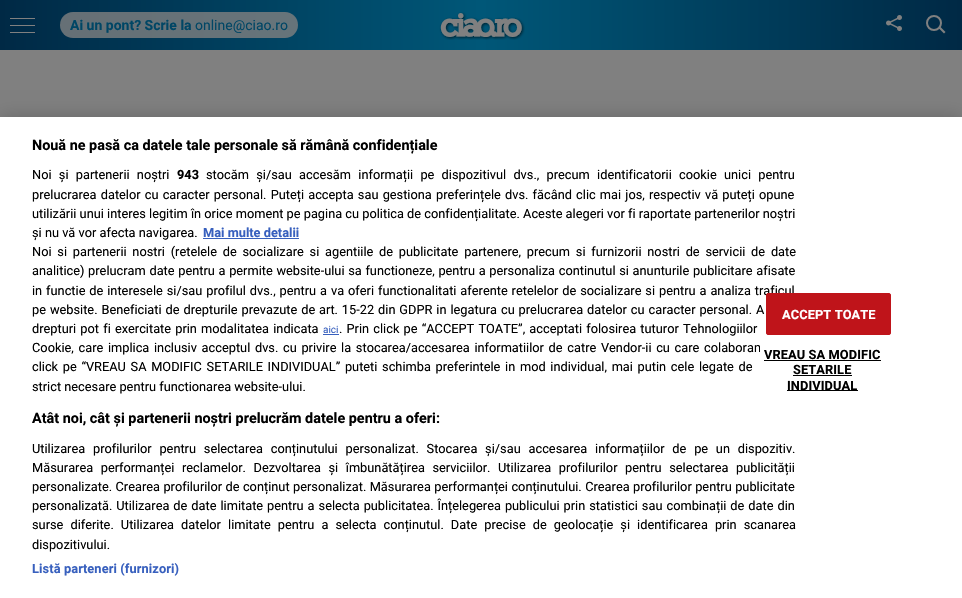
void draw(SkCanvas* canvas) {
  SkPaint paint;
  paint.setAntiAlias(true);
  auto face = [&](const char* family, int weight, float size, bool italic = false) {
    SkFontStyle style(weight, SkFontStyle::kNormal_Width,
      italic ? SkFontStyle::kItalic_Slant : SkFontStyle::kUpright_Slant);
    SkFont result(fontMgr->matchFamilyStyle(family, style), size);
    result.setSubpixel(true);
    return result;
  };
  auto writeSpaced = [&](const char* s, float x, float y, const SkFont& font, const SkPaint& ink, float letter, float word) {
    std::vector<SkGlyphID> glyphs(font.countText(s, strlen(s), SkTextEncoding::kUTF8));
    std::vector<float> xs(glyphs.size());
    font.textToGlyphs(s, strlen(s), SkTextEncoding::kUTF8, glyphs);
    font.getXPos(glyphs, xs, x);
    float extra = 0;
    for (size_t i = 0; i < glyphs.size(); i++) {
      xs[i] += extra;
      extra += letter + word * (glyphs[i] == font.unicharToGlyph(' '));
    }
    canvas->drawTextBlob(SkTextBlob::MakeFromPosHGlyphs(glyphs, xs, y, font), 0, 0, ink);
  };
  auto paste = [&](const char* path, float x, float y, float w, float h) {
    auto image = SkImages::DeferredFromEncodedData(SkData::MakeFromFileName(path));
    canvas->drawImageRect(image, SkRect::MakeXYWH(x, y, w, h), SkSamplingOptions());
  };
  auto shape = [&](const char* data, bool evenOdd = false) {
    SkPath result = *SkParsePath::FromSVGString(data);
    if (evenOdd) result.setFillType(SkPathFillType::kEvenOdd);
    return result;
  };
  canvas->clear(0xff808080);
  {
    const SkColor colors[] = {0xff002945, 0xff005778, 0xff002945};
    const float stops[] = {0, 0.5f, 1};
    const SkPoint ends[] = {{0, 25}, {962, 25}};
    paint.setShader(SkGradientShader::MakeLinear(ends, colors, stops, 3, SkTileMode::kClamp));
    paint.setAlpha(255);
  }
  canvas->drawRect(SkRect::MakeXYWH(0, 0, 962, 50), paint);
  paint.setShader(nullptr);
  {
    const struct { float x, y, w, h; SkColor color; } items[] = {
      {10, 25, 25, 1, 0xff808080},
      {10, 18, 25, 1, 0xff808080},
      {10, 32, 25, 1, 0xff808080},
    };
    for (auto [x, y, w, h, color] : items) {
      paint.setColor(color);
      canvas->drawRect(SkRect::MakeXYWH(x, y, w, h), paint);
    }
  }
  paint.setColor(0xcc808080);
  canvas->drawRoundRect(SkRect::MakeXYWH(60, 12, 238, 26), 13, 13, paint);
  paste("img/1.png", 439, 12, 86, 28);
  paste("img/2.png", 886, 15, 16, 16);
  paint.setStroke(true);
  paint.setStrokeWidth(2);
  paint.setColor(0xff808080);
  canvas->drawCircle(934, 23, 7, paint);
  paint.setStroke(false);
  canvas->drawPath(shape("M938.5 28L940 26.5L945.5 32L944 33.5Z"), paint);
  paint.setColor(0x33000000);
  paint.setMaskFilter(SkMaskFilter::MakeBlur(kNormal_SkBlurStyle, 9));
  canvas->drawRect(SkRect::MakeXYWH(0, 117, 962, 481), paint);
  paint.setMaskFilter(nullptr);
  {
    const struct { float x, y, w, h; SkColor color; } items[] = {
      {0, 117, 962, 481, 0xffffffff},
      {203, 238, 96, 1, 0xff3860be},
      {323, 334, 16, 1, 0xff3860be},
    };
    for (auto [x, y, w, h, color] : items) {
      paint.setColor(color);
      canvas->drawRect(SkRect::MakeXYWH(x, y, w, h), paint);
    }
  }
  auto f0 = face("Roboto", 700, 14);
  paint.setColor(0xff004665);
  canvas->drawString("Ai un pont? Scrie la", 70, 30, f0, paint);
  auto f1 = face("Roboto", 400, 14);
  canvas->drawString("online@ciao.ro", 195, 30, f1, paint);
  auto f2 = face("Roboto", 700, 14.4f);
  paint.setColor(0xff000000);
  canvas->drawString("Nouă ne pasă ca datele tale personale să rămână confidențiale", 32, 150, f2, paint);
  auto f3 = face("Roboto", 400, 12.8f);
  writeSpaced("Noi și partenerii noștri", 32, 179, f3, paint, 0, 4.1f);
  auto f4 = face("Roboto", 700, 12.8f);
  canvas->drawString("943", 177, 179, f4, paint);
  writeSpaced("stocăm și/sau accesăm informații pe dispozitivul dvs., precum identificatorii cookie unici pentru", 206, 179, f3, paint, 0, 4.1f);
  writeSpaced("prelucrarea datelor cu caracter personal. Puteți accepta sau gestiona preferințele dvs. făcând clic mai jos, respectiv vă puteți opune", 32, 199, f3, paint, 0, 1);
  canvas->drawString("utilizării unui interes legitim în orice moment pe pagina cu politica de confidențialitate. Aceste alegeri vor fi raportate partenerilor noștri", 32, 218, f3, paint);
  canvas->drawString("și nu vă vor afecta navigarea.", 32, 237, f3, paint);
  paint.setColor(0xff3860be);
  canvas->drawString("Mai multe detalii", 203, 237, f4, paint);
  paint.setColor(0xff000000);
  writeSpaced("Noi si partenerii nostri (retelele de socializare si agentiile de publicitate partenere, precum si furnizorii nostri de servicii de date", 32, 256, f3, paint, 0, 2.6f);
  writeSpaced("analitice) prelucram date pentru a permite website-ului sa functioneze, pentru a personaliza continutul si anunturile publicitare afisate", 32, 275, f3, paint, 0, 0.5f);
  writeSpaced("in functie de interesele si/sau profilul dvs., pentru a va oferi functionalitati aferente retelelor de socializare si pentru a analiza traficul", 32, 295, f3, paint, 0, 0.75f);
  writeSpaced("pe website. Beneficiati de drepturile prevazute de art. 15-22 din GDPR in legatura cu prelucrarea datelor cu caracter personal. A", 32, 314, f3, paint, 0, 0.75f);
  writeSpaced("drepturi pot fi exercitate prin modalitatea indicata", 32, 333, f3, paint, 0, 1);
  auto f5 = face("Roboto", 400, 10);
  paint.setColor(0xff3860be);
  canvas->drawString("aici", 323, 333, f5, paint);
  paint.setColor(0xff000000);
  writeSpaced(". Prin click pe “ACCEPT TOATE”, acceptati folosirea tuturor Tehnologiilor", 339, 333, f3, paint, 0, 1);
  writeSpaced("Cookie, care implica inclusiv acceptul dvs. cu privire la stocarea/accesarea informatiilor de catre Vendor-ii cu care colaboram", 32, 352, f3, paint, 0, 1.5f);
  writeSpaced("click pe “VREAU SA MODIFIC SETARILE INDIVIDUAL” puteti schimba preferintele in mod individual, mai putin cele legate de", 32, 371, f3, paint, 0, 1.5f);
  canvas->drawString("strict necesare pentru functionarea website-ului.", 32, 391, f3, paint);
  canvas->drawString("Atât noi, cât și partenerii noștri prelucrăm datele pentru a oferi:", 32, 423, f2, paint);
  writeSpaced("Utilizarea profilurilor pentru selectarea conținutului personalizat. Stocarea și/sau accesarea informațiilor de pe un dispozitiv.", 32, 453, f3, paint, 0, 4.6f);
  writeSpaced("Măsurarea performanței reclamelor. Dezvoltarea și îmbunătățirea serviciilor. Utilizarea profilurilor pentru selectarea publicității", 32, 472, f3, paint, 0, 4.4f);
  writeSpaced("personalizate. Crearea profilurilor de conținut personalizat. Măsurarea performanței conținutului. Crearea profilurilor pentru publicitate", 32, 491, f3, paint, 0, 0.25f);
  writeSpaced("personalizată. Utilizarea de date limitate pentru a selecta publicitatea. Înțelegerea publicului prin statistici sau combinații de date din", 32, 510, f3, paint, 0, 0.8f);
  writeSpaced("surse diferite. Utilizarea datelor limitate pentru a selecta conținutul. Date precise de geolocație și identificarea prin scanarea", 32, 529, f3, paint, 0, 3.9f);
  canvas->drawString("dispozitivului.", 32, 549, f3, paint);
  paint.setColor(0xff3860be);
  writeSpaced("Listă parteneri (furnizori)", 32, 573, f4, paint, 0.1f, 0);
  paint.setColor(0xffbf141a);
  canvas->drawRoundRect(SkRect::MakeXYWH(766.5f, 293.5f, 124, 41), 1.5f, 1.5f, paint);
  paint.setStroke(true);
  paint.setStrokeWidth(1);
  canvas->drawRoundRect(SkRect::MakeXYWH(766.5f, 293.5f, 124, 41), 1.5f, 1.5f, paint);
  paint.setStroke(false);
  paint.setColor(0xffffffff);
  writeSpaced("ACCEPT TOATE", 782, 319, f4, paint, 0.1f, 0);
  canvas->drawRoundRect(SkRect::MakeXYWH(760, 335, 125, 70), 2, 2, paint);
  paint.setColor(0xff000000);
  writeSpaced("VREAU SA MODIFIC", 764, 359, f4, paint, 0.1f, 0);
  canvas->drawRect(SkRect::MakeXYWH(764, 360, 117, 1), paint);
  writeSpaced("SETARILE", 793, 374, f4, paint, 0.1f, 0);
  canvas->drawRect(SkRect::MakeXYWH(793, 375, 59, 1), paint);
  canvas->drawRect(SkRect::MakeXYWH(787, 390, 71, 1), paint);
  writeSpaced("INDIVIDUAL", 787, 390, f4, paint, 0.1f, 0);
}
